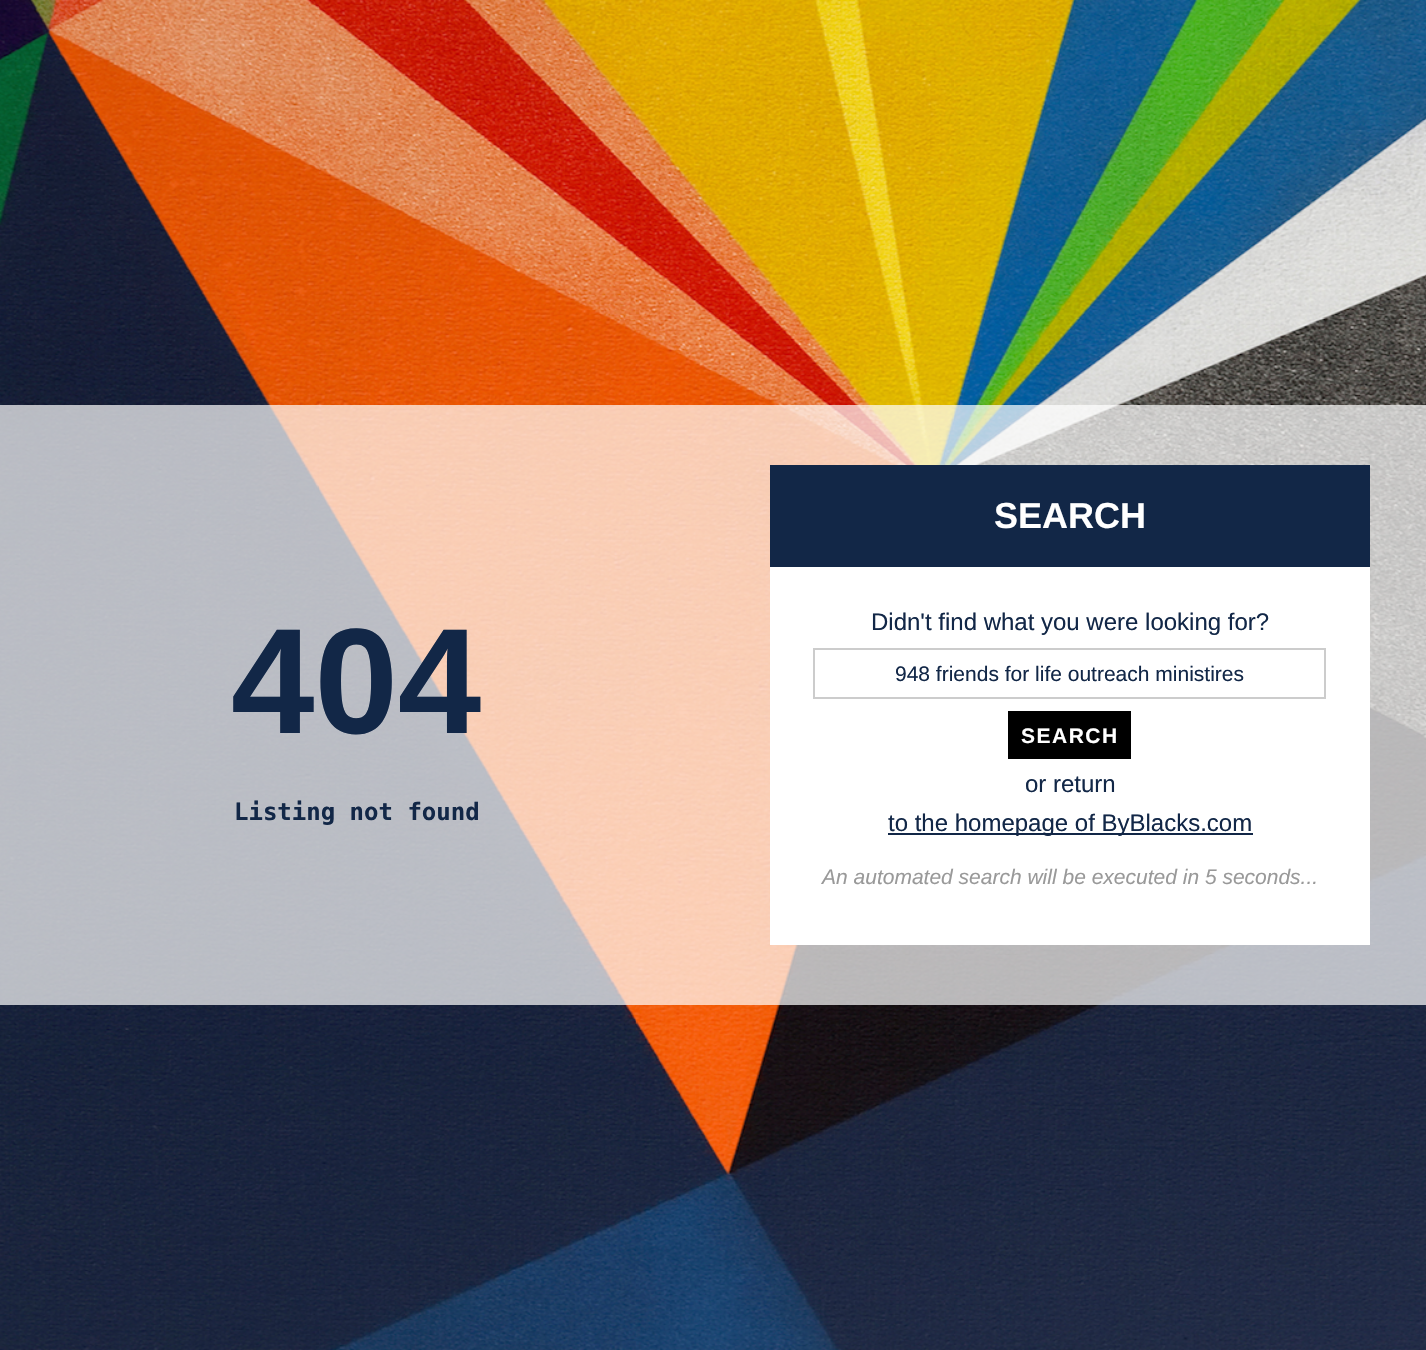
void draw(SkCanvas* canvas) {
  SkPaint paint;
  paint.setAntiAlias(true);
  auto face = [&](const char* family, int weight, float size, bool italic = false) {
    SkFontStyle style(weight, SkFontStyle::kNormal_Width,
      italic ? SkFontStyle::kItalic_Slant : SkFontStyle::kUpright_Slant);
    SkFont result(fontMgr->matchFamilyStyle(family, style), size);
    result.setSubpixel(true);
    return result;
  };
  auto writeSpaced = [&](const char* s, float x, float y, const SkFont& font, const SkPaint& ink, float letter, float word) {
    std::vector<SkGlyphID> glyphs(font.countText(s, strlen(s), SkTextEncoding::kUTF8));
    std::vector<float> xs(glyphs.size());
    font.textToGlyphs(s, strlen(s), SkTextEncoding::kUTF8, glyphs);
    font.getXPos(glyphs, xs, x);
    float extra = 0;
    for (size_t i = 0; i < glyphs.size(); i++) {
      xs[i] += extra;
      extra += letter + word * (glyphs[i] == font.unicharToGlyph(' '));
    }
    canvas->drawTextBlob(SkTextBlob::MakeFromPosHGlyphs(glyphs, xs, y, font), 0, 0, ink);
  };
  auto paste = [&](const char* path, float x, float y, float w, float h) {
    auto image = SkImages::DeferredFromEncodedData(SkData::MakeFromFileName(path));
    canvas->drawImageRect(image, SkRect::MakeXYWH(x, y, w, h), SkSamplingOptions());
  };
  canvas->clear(0xffffffff);
  paste("img/1.png", 0, 0, 1426, 1350);
  {
    const struct { float x, y, w, h; SkColor color; } items[] = {
      {0, 405, 1426, 600, 0xb3ffffff},
      {770, 567, 600, 378, 0xffffffff},
      {770, 465, 600, 102, 0xff122747},
    };
    for (auto [x, y, w, h, color] : items) {
      paint.setColor(color);
      canvas->drawRect(SkRect::MakeXYWH(x, y, w, h), paint);
    }
  }
  paint.setStroke(true);
  paint.setStrokeWidth(2);
  paint.setColor(0xffcccccc);
  canvas->drawRect(SkRect::MakeXYWH(814, 649, 511, 49), paint);
  paint.setStroke(false);
  paint.setColor(0xff000000);
  canvas->drawRect(SkRect::MakeXYWH(1008, 711, 123, 48), paint);
  paint.setColor(0xff122747);
  canvas->drawRect(SkRect::MakeXYWH(888, 833, 365, 2), paint);
  auto f0 = face("Liberation Sans", 700, 150);
  canvas->drawString("404", 231, 733, f0, paint);
  auto f1 = face("DejaVu Sans Mono", 700, 24);
  canvas->drawString("Listing not found", 234, 820, f1, paint);
  auto f2 = face("Liberation Sans", 700, 36);
  paint.setColor(0xffffffff);
  canvas->drawString("SEARCH", 994, 528, f2, paint);
  auto f3 = face("Liberation Sans", 400, 24);
  paint.setColor(0xff122747);
  canvas->drawString("Didn't find what you were looking for?", 871, 630, f3, paint);
  auto f4 = face("Liberation Sans", 400, 21);
  canvas->drawString("948 friends for life outreach ministires", 895, 681, f4, paint);
  auto f5 = face("Liberation Sans", 700, 21);
  paint.setColor(0xffffffff);
  writeSpaced("SEARCH", 1021, 743, f5, paint, 1.5f, 0);
  paint.setColor(0xff122747);
  canvas->drawString("or return", 1025, 792, f3, paint);
  canvas->drawString("to the homepage of ByBlacks.com", 888, 831, f3, paint);
  auto f6 = face("Liberation Sans", 400, 21, true);
  paint.setColor(0xff999999);
  canvas->drawString("An automated search will be executed in 5 seconds...", 822, 884, f6, paint);
}
